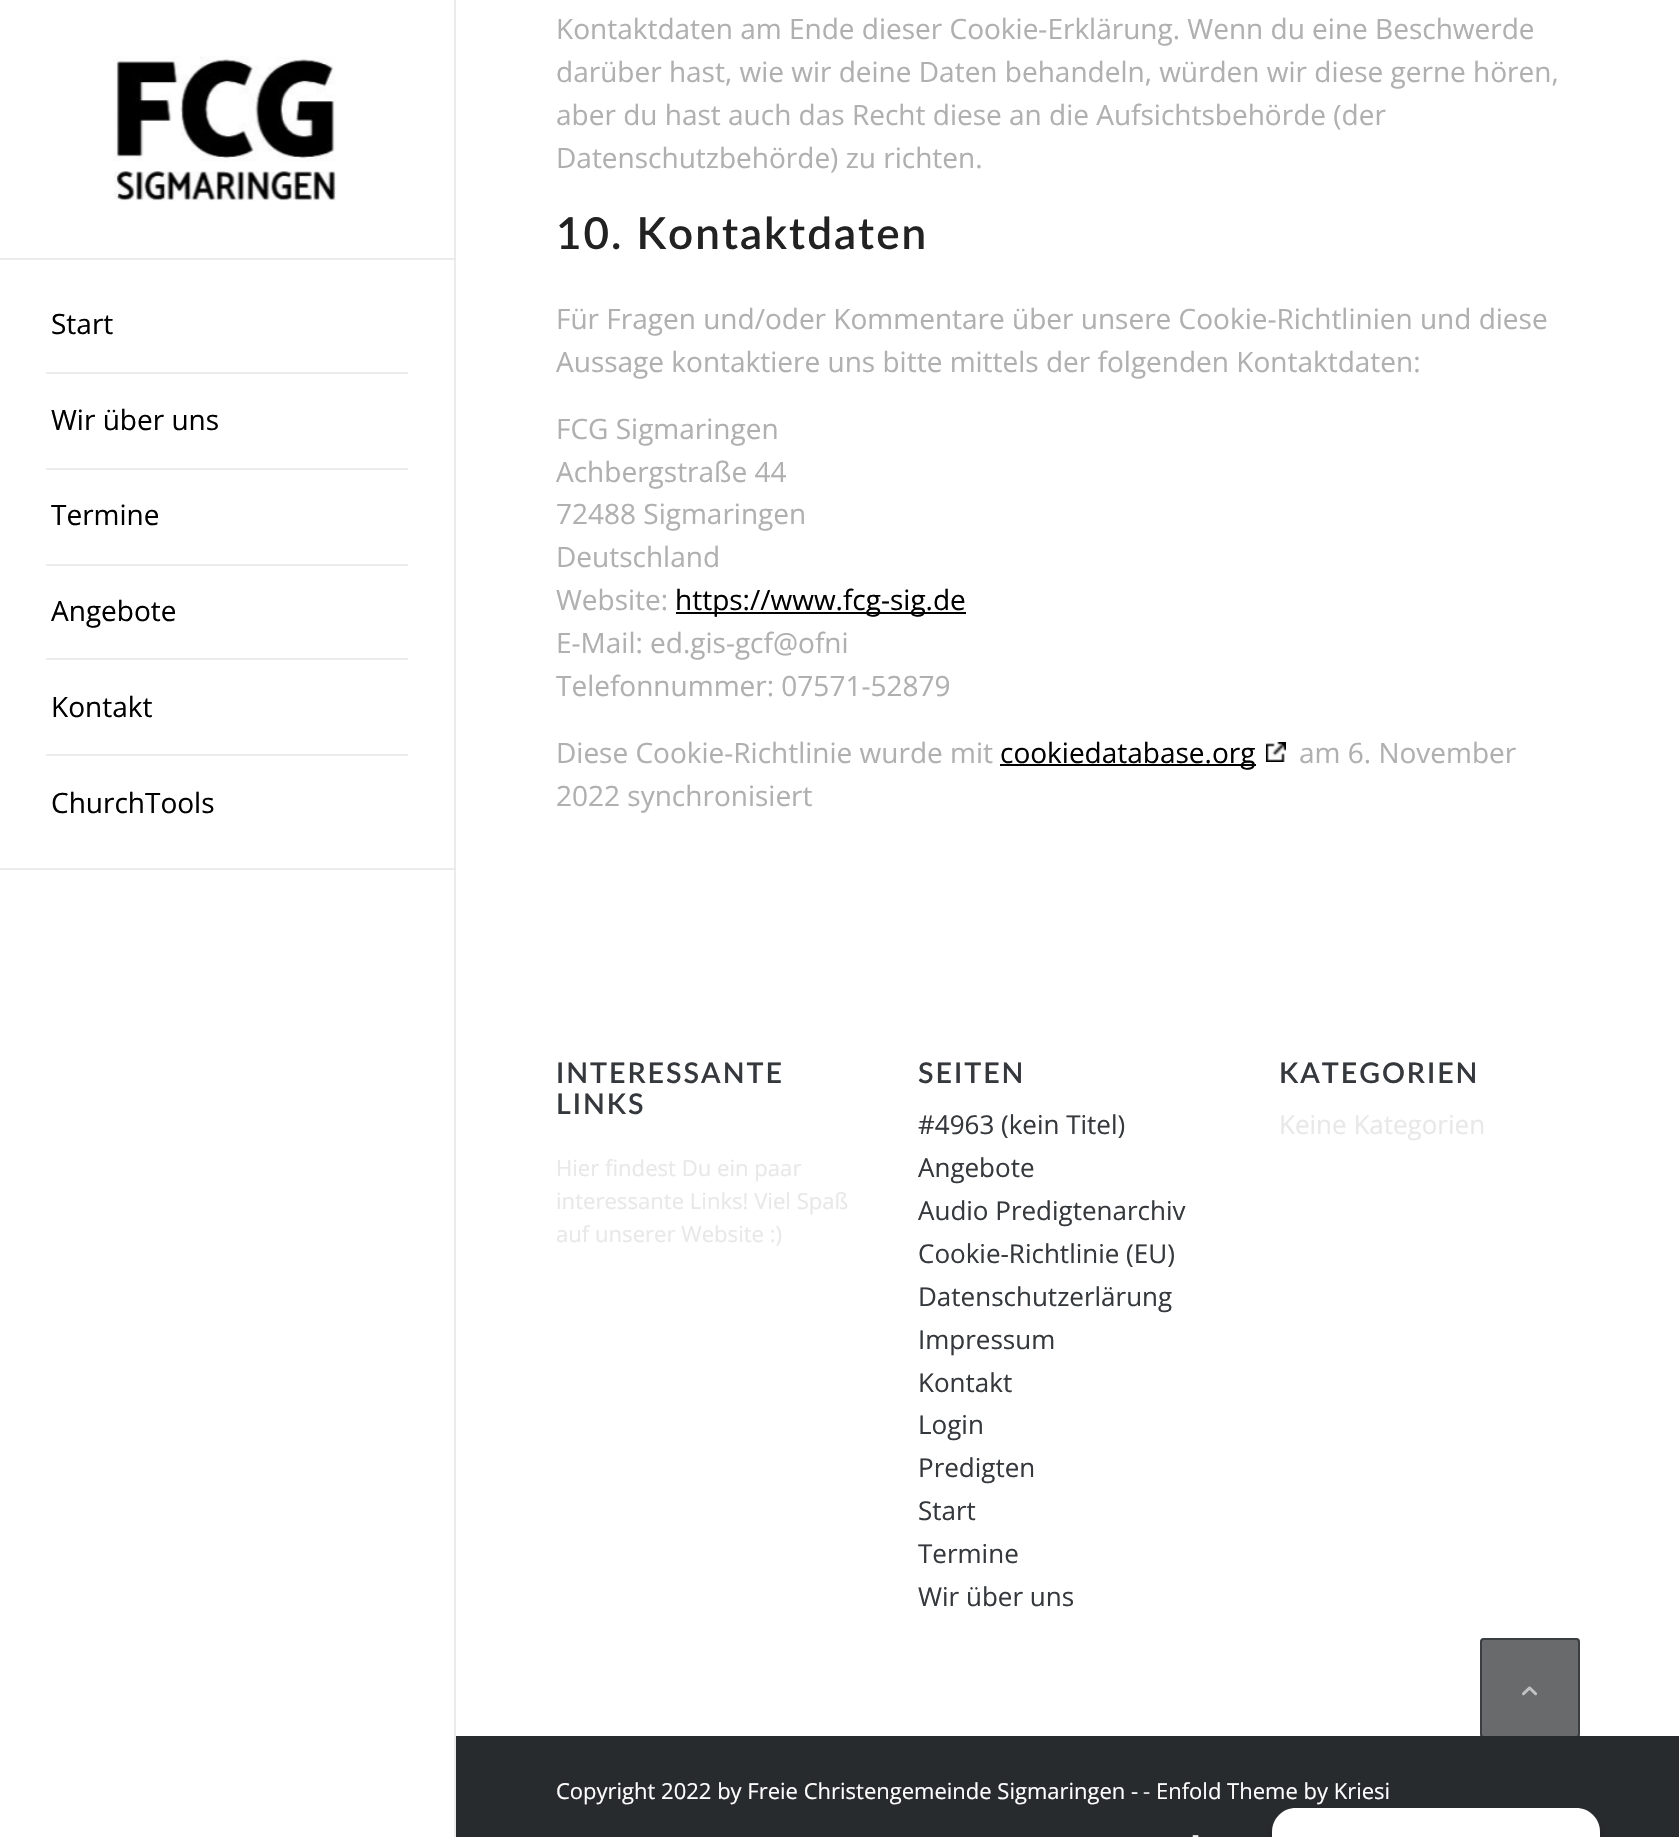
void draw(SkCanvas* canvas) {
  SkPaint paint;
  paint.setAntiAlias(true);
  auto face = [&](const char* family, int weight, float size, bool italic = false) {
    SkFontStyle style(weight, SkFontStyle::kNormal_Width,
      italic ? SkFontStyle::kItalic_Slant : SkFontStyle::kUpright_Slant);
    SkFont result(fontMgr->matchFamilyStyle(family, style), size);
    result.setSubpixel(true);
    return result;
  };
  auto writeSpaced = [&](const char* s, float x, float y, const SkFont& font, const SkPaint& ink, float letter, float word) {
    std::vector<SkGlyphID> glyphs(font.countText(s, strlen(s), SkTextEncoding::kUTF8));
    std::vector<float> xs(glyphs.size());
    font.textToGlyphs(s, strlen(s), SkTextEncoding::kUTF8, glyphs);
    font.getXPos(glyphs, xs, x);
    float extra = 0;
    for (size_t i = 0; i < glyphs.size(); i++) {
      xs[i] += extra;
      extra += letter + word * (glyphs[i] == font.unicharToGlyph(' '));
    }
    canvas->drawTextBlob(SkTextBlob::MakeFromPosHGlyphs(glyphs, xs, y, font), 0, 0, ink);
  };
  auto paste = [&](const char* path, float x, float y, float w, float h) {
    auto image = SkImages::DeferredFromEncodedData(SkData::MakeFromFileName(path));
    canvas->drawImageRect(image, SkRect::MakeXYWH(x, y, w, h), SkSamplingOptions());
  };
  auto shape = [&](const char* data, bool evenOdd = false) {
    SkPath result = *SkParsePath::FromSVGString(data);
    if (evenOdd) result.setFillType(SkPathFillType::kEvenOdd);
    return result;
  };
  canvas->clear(0xffffffff);
  paint.setColor(0xffebebeb);
  canvas->drawRect(SkRect::MakeXYWH(0, 868, 454, 2), paint);
  canvas->drawRect(SkRect::MakeXYWH(0, 258, 454, 2), paint);
  paste("img/1.png", 113, 56, 223, 145);
  {
    const struct { float x, y, w, h; SkColor color; } items[] = {
      {46, 372, 362, 2, 0xffebebeb},
      {46, 468, 362, 2, 0xffebebeb},
      {46, 564, 362, 2, 0xffebebeb},
      {46, 658, 362, 2, 0xffebebeb},
      {46, 754, 362, 2, 0xffebebeb},
      {454, 0, 2, 1837, 0xffebebeb},
      {676, 612, 290, 2, 0xff000000},
      {1000, 764, 256, 2, 0xff000000},
    };
    for (auto [x, y, w, h, color] : items) {
      paint.setColor(color);
      canvas->drawRect(SkRect::MakeXYWH(x, y, w, h), paint);
    }
  }
  paste("img/2.png", 1266, 742, 20, 20);
  paint.setColor(0xff282b2e);
  canvas->drawRect(SkRect::MakeXYWH(456, 1736, 1223, 101), paint);
  paint.setColor(0xb3282b2e);
  canvas->drawRoundRect(SkRect::MakeXYWH(1480, 1638, 100, 100), 4, 4, paint);
  paint.setStroke(true);
  paint.setStrokeWidth(2);
  canvas->drawRoundRect(SkRect::MakeXYWH(1481, 1639, 98, 98), 3, 3, paint);
  paste("img/3.png", 1522, 1686, 15, 10);
  paint.setStroke(false);
  paint.setColor(0x3b000000);
  paint.setMaskFilter(SkMaskFilter::MakeBlur(kNormal_SkBlurStyle, 6));
  canvas->drawRoundRect(SkRect::MakeXYWH(1272, 1820, 328, 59), 24, 24, paint);
  paint.setMaskFilter(nullptr);
  paint.setColor(0xffffffff);
  canvas->drawPath(shape("M1296 1808H1576C1589.5 1808 1600 1818.5 1600 1832V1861H1272V1832C1272 1818.5 1282.5 1808 1296 1808Z"), paint);
  auto f0 = face("Open Sans", 400, 28);
  paint.setColor(0xff000000);
  {
    const struct { const char* s; float x, y; } items[] = {
      {"Start", 51, 334},
      {"Wir über uns", 51, 430},
      {"Termine", 51, 525},
      {"Angebote", 51, 621},
      {"Kontakt", 51, 717},
      {"ChurchTools", 51, 813},
    };
    for (auto [s, x, y] : items) {
      canvas->drawString(s, x, y, f0, paint);
    }
  }
  paint.setColor(0xffb0b0b0);
  {
    const struct { const char* s; float x, y; } items[] = {
      {"Kontaktdaten am Ende dieser Cookie-Erklärung. Wenn du eine Beschwerde", 556, 39},
      {"darüber hast, wie wir deine Daten behandeln, würden wir diese gerne hören,", 556, 82},
      {"aber du hast auch das Recht diese an die Aufsichtsbehörde (der", 556, 125},
      {"Datenschutzbehörde) zu richten.", 556, 168},
    };
    for (auto [s, x, y] : items) {
      canvas->drawString(s, x, y, f0, paint);
    }
  }
  auto f1 = face("Lato", 600, 44);
  paint.setColor(0xff222222);
  writeSpaced("10. Kontaktdaten", 556, 249, f1, paint, 2, 0);
  paint.setColor(0xffb0b0b0);
  {
    const struct { const char* s; float x, y; } items[] = {
      {"Für Fragen und/oder Kommentare über unsere Cookie-Richtlinien und diese", 556, 329},
      {"Aussage kontaktiere uns bitte mittels der folgenden Kontaktdaten:", 556, 372},
      {"FCG Sigmaringen", 556, 439},
      {"Achbergstraße 44", 556, 482},
      {"72488 Sigmaringen", 556, 524},
      {"Deutschland", 556, 567},
      {"Website:", 556, 610},
    };
    for (auto [s, x, y] : items) {
      canvas->drawString(s, x, y, f0, paint);
    }
  }
  paint.setColor(0xff000000);
  canvas->drawString("https://www.fcg-sig.de", 675, 610, f0, paint);
  paint.setColor(0xffb0b0b0);
  {
    const struct { const char* s; float x, y; } items[] = {
      {"E-Mail: ed.gis-gcf@ofni", 556, 653},
      {"Telefonnummer: 07571-52879", 556, 696},
      {"Diese Cookie-Richtlinie wurde mit", 556, 763},
    };
    for (auto [s, x, y] : items) {
      canvas->drawString(s, x, y, f0, paint);
    }
  }
  paint.setColor(0xff000000);
  canvas->drawString("cookiedatabase.org", 1000, 763, f0, paint);
  paint.setColor(0xffb0b0b0);
  canvas->drawString("am 6. November", 1299, 763, f0, paint);
  canvas->drawString("2022 synchronisiert", 556, 806, f0, paint);
  auto f2 = face("Lato", 600, 28.5f);
  paint.setColor(0xff35383c);
  writeSpaced("INTERESSANTE", 556, 1083, f2, paint, 2, 0);
  writeSpaced("LINKS", 556, 1114, f2, paint, 2, 0);
  auto f3 = face("Open Sans", 400, 22.1f);
  paint.setColor(0xffe8e8e8);
  {
    const struct { const char* s; float x, y; } items[] = {
      {"Hier findest Du ein paar", 556, 1176},
      {"interessante Links! Viel Spaß", 556, 1209},
      {"auf unserer Website :)", 556, 1242},
    };
    for (auto [s, x, y] : items) {
      canvas->drawString(s, x, y, f3, paint);
    }
  }
  paint.setColor(0xff35383c);
  writeSpaced("SEITEN", 918, 1083, f2, paint, 2, 0);
  auto f4 = face("Open Sans", 400, 26);
  {
    const struct { const char* s; float x, y; } items[] = {
      {"#4963 (kein Titel)", 918, 1134},
      {"Angebote", 918, 1177},
      {"Audio Predigtenarchiv", 918, 1220},
      {"Cookie-Richtlinie (EU)", 918, 1263},
      {"Datenschutzerlärung", 918, 1306},
      {"Impressum", 918, 1349},
      {"Kontakt", 918, 1392},
      {"Login", 918, 1434},
      {"Predigten", 918, 1477},
      {"Start", 918, 1520},
    };
    for (auto [s, x, y] : items) {
      canvas->drawString(s, x, y, f4, paint);
    }
  }
  canvas->save();
  canvas->clipRect(SkRect::MakeXYWH(918, 1032, 300, 586));
  canvas->drawString("Termine", 918, 1563, f4, paint);
  canvas->restore();
  canvas->drawString("Wir über uns", 918, 1606, f4, paint);
  writeSpaced("KATEGORIEN", 1279, 1083, f2, paint, 2, 0);
  paint.setColor(0xffe8e8e8);
  canvas->drawString("Keine Kategorien", 1279, 1134, f4, paint);
  auto f5 = face("Open Sans", 400, 22);
  paint.setColor(0xffffffff);
  canvas->drawString("Copyright 2022 by Freie Christengemeinde Sigmaringen -", 556, 1799, f5, paint);
  paint.setColor(0xffe8e8e8);
  canvas->drawString("-", 1143, 1799, f5, paint);
  paint.setColor(0xffffffff);
  canvas->drawString("Enfold Theme by Kriesi", 1156, 1799, f5, paint);
  canvas->drawString("-", 1192, 1842, f5, paint);
}
